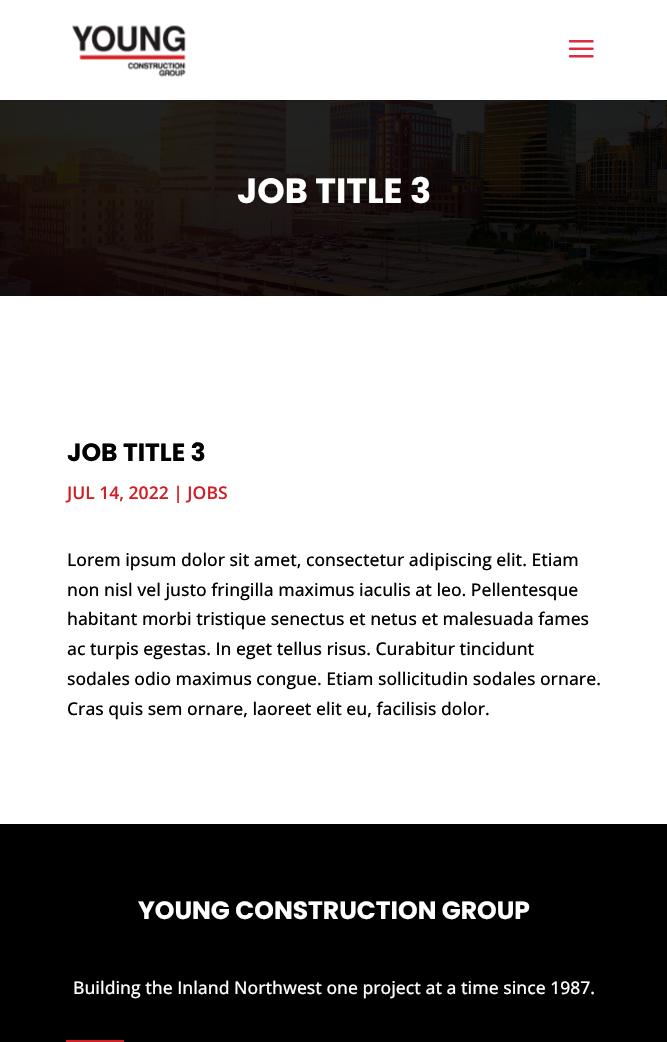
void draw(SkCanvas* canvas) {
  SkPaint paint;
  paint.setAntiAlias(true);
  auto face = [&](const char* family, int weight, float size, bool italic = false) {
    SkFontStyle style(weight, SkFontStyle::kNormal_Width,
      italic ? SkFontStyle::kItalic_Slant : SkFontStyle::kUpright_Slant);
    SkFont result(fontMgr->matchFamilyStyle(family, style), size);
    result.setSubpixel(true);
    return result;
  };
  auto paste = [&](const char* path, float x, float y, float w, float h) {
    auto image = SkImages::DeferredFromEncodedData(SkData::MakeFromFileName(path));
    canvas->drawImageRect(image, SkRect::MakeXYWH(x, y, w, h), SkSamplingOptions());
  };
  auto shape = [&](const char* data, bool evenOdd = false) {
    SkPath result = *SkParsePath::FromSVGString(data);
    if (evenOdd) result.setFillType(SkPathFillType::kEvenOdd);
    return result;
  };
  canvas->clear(0xffffffff);
  paste("img/3.png", 0, 100, 667, 196);
  paint.setColor(0x1a000000);
  canvas->drawPath(shape("M0 100V101H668V1V100Z"), paint);
  paste("img/1.png", 72, 25, 114, 52);
  paste("img/2.png", 568, 40, 26, 18);
  paint.setColor(0xff000000);
  canvas->drawRect(SkRect::MakeXYWH(0, 824, 667, 218), paint);
  paint.setStroke(true);
  paint.setStrokeWidth(4);
  paint.setColor(0xffd31e25);
  canvas->drawRect(SkRect::MakeXYWH(68, 1042, 54, 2), paint);
  auto f0 = face("Poppins", 700, 35);
  paint.setStroke(false);
  paint.setColor(0xffffffff);
  canvas->drawString("JOB TITLE 3", 237, 203, f0, paint);
  auto f1 = face("Poppins", 700, 25);
  paint.setColor(0xff000000);
  canvas->drawString("JOB TITLE 3", 67, 461, f1, paint);
  auto f2 = face("Open Sans", 600, 17.5f);
  paint.setColor(0xffd31e25);
  canvas->drawString("JUL 14, 2022 | JOBS", 67, 499, f2, paint);
  auto f3 = face("Open Sans", 500, 17.5f);
  paint.setColor(0xff000000);
  {
    const struct { const char* s; float x, y; } items[] = {
      {"Lorem ipsum dolor sit amet, consectetur adipiscing elit. Etiam", 67, 566},
      {"non nisl vel justo fringilla maximus iaculis at leo. Pellentesque", 67, 596},
      {"habitant morbi tristique senectus et netus et malesuada fames", 67, 625},
      {"ac turpis egestas. In eget tellus risus. Curabitur tincidunt", 67, 655},
      {"sodales odio maximus congue. Etiam sollicitudin sodales ornare.", 67, 685},
      {"Cras quis sem ornare, laoreet elit eu, facilisis dolor.", 67, 715},
    };
    for (auto [s, x, y] : items) {
      canvas->drawString(s, x, y, f3, paint);
    }
  }
  paint.setColor(0xffffffff);
  canvas->drawString("YOUNG CONSTRUCTION GROUP", 138, 919, f1, paint);
  canvas->drawString("Building the Inland Northwest one project at a time since 1987.", 73, 994, f3, paint);
}
